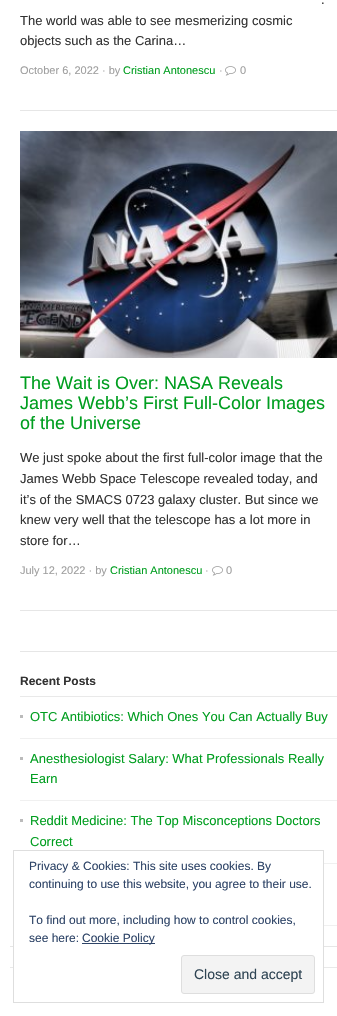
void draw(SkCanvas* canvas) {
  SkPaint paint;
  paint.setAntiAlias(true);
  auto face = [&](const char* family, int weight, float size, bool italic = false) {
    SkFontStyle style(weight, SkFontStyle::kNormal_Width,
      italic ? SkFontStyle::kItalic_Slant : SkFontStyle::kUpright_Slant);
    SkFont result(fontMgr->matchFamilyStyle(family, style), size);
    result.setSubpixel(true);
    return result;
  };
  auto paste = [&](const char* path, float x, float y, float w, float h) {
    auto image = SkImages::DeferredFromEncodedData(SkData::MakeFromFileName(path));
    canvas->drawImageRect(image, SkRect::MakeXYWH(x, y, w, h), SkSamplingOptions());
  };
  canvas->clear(0xffffffff);
  paint.setColor(0xffe6e6e6);
  canvas->drawRect(SkRect::MakeXYWH(20, 110, 317, 1), paint);
  paste("img/1.png", 225, 66, 11, 10);
  canvas->drawRect(SkRect::MakeXYWH(20, 610, 317, 1), paint);
  paste("img/2.png", 20, 131, 317, 227);
  paste("img/1.png", 212, 566, 11, 10);
  {
    const struct { float x, y, w, h; SkColor color; } items[] = {
      {20, 651, 317, 1, 0xffe6e6e6},
      {20, 696, 317, 1, 0xffe9e9e9},
      {20, 715, 3, 3, 0xffbbbbbb},
      {20, 738, 317, 1, 0xfff0f0f0},
      {20, 757, 3, 3, 0xffbbbbbb},
      {20, 800, 317, 1, 0xfff0f0f0},
      {20, 819, 3, 3, 0xffbbbbbb},
      {324, 863, 13, 1, 0xfff0f0f0},
      {324, 925, 13, 1, 0xfff0f0f0},
      {10, 946, 327, 1, 0xffe6e6e6},
      {10, 967, 327, 1, 0xffe9e9e9},
      {14, 946, 309, 22, 0xffffffff},
    };
    for (auto [x, y, w, h, color] : items) {
      paint.setColor(color);
      canvas->drawRect(SkRect::MakeXYWH(x, y, w, h), paint);
    }
  }
  paint.setStroke(true);
  paint.setStrokeWidth(1);
  paint.setColor(0xffdedede);
  canvas->drawRect(SkRect::MakeXYWH(13.5f, 850.5f, 310, 152), paint);
  paint.setStroke(false);
  paint.setColor(0xff2e4467);
  canvas->drawRect(SkRect::MakeXYWH(82, 943, 73, 1), paint);
  paint.setColor(0xfff3f3f3);
  canvas->drawRoundRect(SkRect::MakeXYWH(181.5f, 955.5f, 133, 38), 2.5f, 2.5f, paint);
  paint.setStroke(true);
  paint.setColor(0xffdedede);
  canvas->drawRoundRect(SkRect::MakeXYWH(181.5f, 955.5f, 133, 38), 2.5f, 2.5f, paint);
  auto f0 = face("Liberation Sans", 400, 13);
  paint.setStroke(false);
  paint.setColor(0xff333333);
  {
    const struct { const char* s; float x, y; } items[] = {
      {".", 321, 4},
      {"The world was able to see mesmerizing cosmic", 20, 25},
      {"objects such as the Carina…", 20, 45},
    };
    for (auto [s, x, y] : items) {
      canvas->drawString(s, x, y, f0, paint);
    }
  }
  auto f1 = face("Liberation Sans", 400, 11);
  paint.setColor(0xff9f9f9f);
  canvas->drawString("October 6, 2022 · by", 20, 74, f1, paint);
  paint.setColor(0xff009e1f);
  canvas->drawString("Cristian Antonescu", 123, 74, f1, paint);
  paint.setColor(0xff9f9f9f);
  canvas->drawString("·", 219, 74, f1, paint);
  canvas->drawString("0", 240, 74, f1, paint);
  auto f2 = face("Liberation Sans", 400, 18);
  paint.setColor(0xff009e1f);
  {
    const struct { const char* s; float x, y; } items[] = {
      {"The Wait is Over: NASA Reveals", 20, 389},
      {"James Webb’s First Full-Color Images", 20, 409},
      {"of the Universe", 20, 429},
    };
    for (auto [s, x, y] : items) {
      canvas->drawString(s, x, y, f2, paint);
    }
  }
  paint.setColor(0xff333333);
  {
    const struct { const char* s; float x, y; } items[] = {
      {"We just spoke about the first full-color image that the", 20, 462},
      {"James Webb Space Telescope revealed today, and", 20, 483},
      {"it’s of the SMACS 0723 galaxy cluster. But since we", 20, 504},
      {"knew very well that the telescope has a lot more in", 20, 524},
      {"store for…", 20, 545},
    };
    for (auto [s, x, y] : items) {
      canvas->drawString(s, x, y, f0, paint);
    }
  }
  paint.setColor(0xff9f9f9f);
  canvas->drawString("July 12, 2022 · by", 20, 574, f1, paint);
  paint.setColor(0xff009e1f);
  canvas->drawString("Cristian Antonescu", 110, 574, f1, paint);
  paint.setColor(0xff9f9f9f);
  canvas->drawString("·", 205, 574, f1, paint);
  canvas->drawString("0", 226, 574, f1, paint);
  auto f3 = face("Liberation Sans", 700, 12);
  paint.setColor(0xff333333);
  canvas->drawString("Recent Posts", 20, 685, f3, paint);
  paint.setColor(0xff009e1f);
  {
    const struct { const char* s; float x, y; } items[] = {
      {"OTC Antibiotics: Which Ones You Can Actually Buy", 30, 721},
      {"Anesthesiologist Salary: What Professionals Really", 30, 763},
      {"Earn", 30, 783},
      {"Reddit Medicine: The Top Misconceptions Doctors", 30, 825},
      {"Correct", 30, 846},
    };
    for (auto [s, x, y] : items) {
      canvas->drawString(s, x, y, f0, paint);
    }
  }
  auto f4 = face("Liberation Sans", 400, 12);
  paint.setColor(0xff2e4467);
  {
    const struct { const char* s; float x, y; } items[] = {
      {"Privacy & Cookies: This site uses cookies. By", 29, 870},
      {"continuing to use this website, you agree to their use.", 29, 888},
      {"To find out more, including how to control cookies,", 29, 924},
      {"see here:", 29, 942},
      {"Cookie Policy", 82, 942},
    };
    for (auto [s, x, y] : items) {
      canvas->drawString(s, x, y, f4, paint);
    }
  }
  auto f5 = face("Liberation Sans", 400, 14);
  paint.setColor(0xff2e4453);
  canvas->drawString("Close and accept", 194, 979, f5, paint);
}
